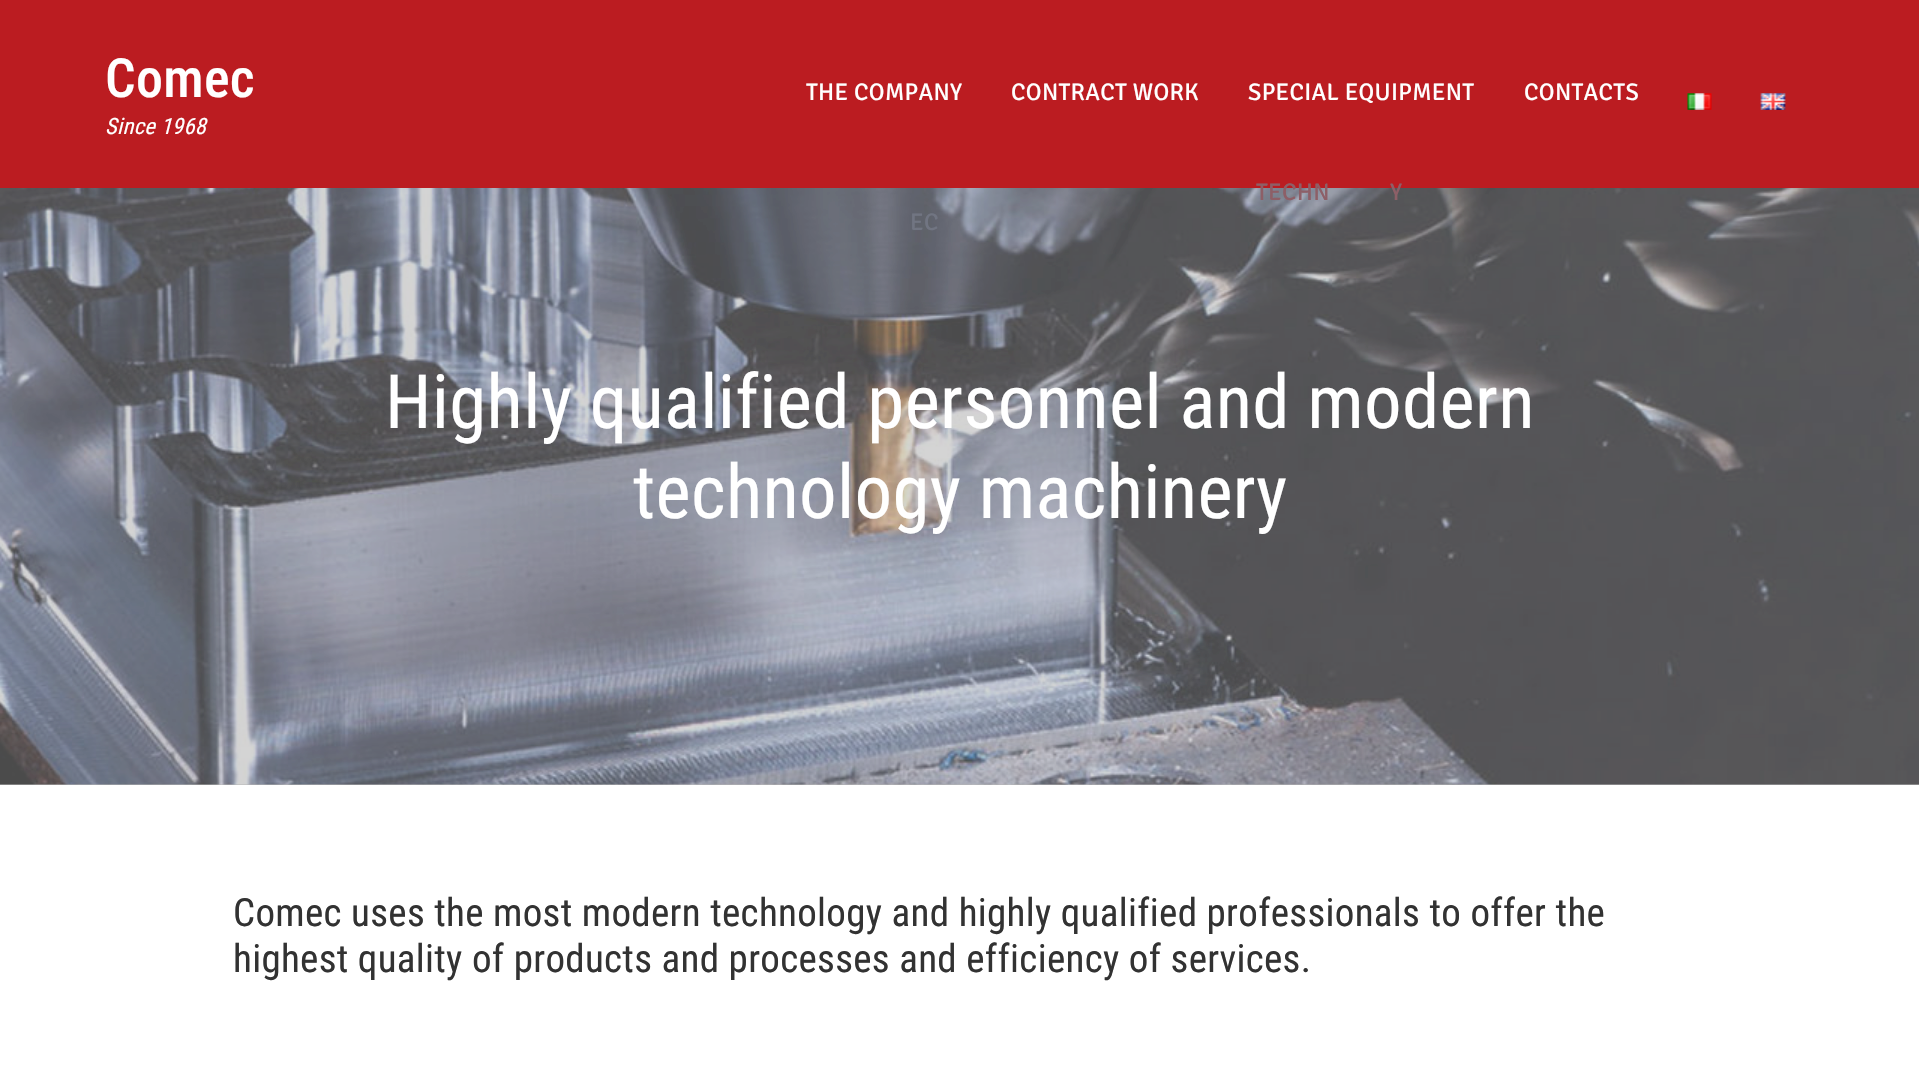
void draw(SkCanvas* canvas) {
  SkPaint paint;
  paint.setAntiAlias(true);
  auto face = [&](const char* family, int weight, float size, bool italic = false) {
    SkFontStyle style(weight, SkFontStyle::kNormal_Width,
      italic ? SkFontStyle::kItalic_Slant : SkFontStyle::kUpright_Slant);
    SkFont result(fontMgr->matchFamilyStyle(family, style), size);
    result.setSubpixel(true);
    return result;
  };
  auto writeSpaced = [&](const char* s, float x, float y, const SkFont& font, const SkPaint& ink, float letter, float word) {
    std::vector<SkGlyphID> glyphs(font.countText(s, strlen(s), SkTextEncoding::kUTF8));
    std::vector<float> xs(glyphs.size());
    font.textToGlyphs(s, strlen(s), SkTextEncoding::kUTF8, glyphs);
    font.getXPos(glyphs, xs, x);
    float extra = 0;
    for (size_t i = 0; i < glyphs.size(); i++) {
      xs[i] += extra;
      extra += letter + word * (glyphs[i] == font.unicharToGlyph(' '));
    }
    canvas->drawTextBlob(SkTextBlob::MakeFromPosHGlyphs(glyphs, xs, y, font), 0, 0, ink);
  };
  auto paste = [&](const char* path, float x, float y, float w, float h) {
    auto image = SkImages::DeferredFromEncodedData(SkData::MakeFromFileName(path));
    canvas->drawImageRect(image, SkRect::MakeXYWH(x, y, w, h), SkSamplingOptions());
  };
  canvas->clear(0xffffffff);
  paint.setColor(0xffbb1c21);
  canvas->drawRect(SkRect::MakeXYWH(0, 0, 1919, 188), paint);
  paste("img/1.png", 1687, 93, 25, 17);
  paste("img/2.png", 1760, 93, 26, 17);
  paint.setColor(0xffb8b8b8);
  canvas->drawRect(SkRect::MakeXYWH(0, 188, 1919, 597), paint);
  paste("img/3.png", 0, 188, 1919, 597);
  auto f0 = face("Roboto Condensed", 500, 54);
  paint.setColor(0xffffffff);
  writeSpaced("Comec", 105, 97, f0, paint, 0.3f, 0);
  auto f1 = face("Roboto Condensed", 400, 22.5f, true);
  writeSpaced("Since 1968", 105, 134, f1, paint, 0.3f, 0);
  auto f2 = face("Signika", 400, 24);
  writeSpaced("THE COMPANY", 806, 100, f2, paint, 0.3f, 0);
  paint.setColor(0xff717582);
  writeSpaced("EC", 910, 230, f2, paint, 0.3f, 0);
  paint.setColor(0xffffffff);
  writeSpaced("CONTRACT WORK", 1011, 100, f2, paint, 0.3f, 0);
  writeSpaced("SPECIAL EQUIPMENT", 1248, 100, f2, paint, 0.3f, 0);
  paint.setColor(0xff8d5f67);
  writeSpaced("TECHN", 1256, 200, f2, paint, 0.3f, 0);
  writeSpaced("Y", 1390, 200, f2, paint, 0.3f, 0);
  paint.setColor(0xffffffff);
  writeSpaced("CONTACTS", 1524, 100, f2, paint, 0.3f, 0);
  auto f3 = face("Roboto Condensed", 400, 75);
  writeSpaced("Highly qualified personnel and modern", 385, 428, f3, paint, 0.3f, 0);
  writeSpaced("technology machinery", 633, 518, f3, paint, 0.3f, 0);
  auto f4 = face("Roboto Condensed", 400, 39);
  paint.setColor(0xff323232);
  writeSpaced("Comec uses the most modern technology and highly qualified professionals to offer the", 233, 926, f4, paint, 0.3f, 0);
  writeSpaced("highest quality of products and processes and efficiency of services.", 233, 972, f4, paint, 0.3f, 0);
}
